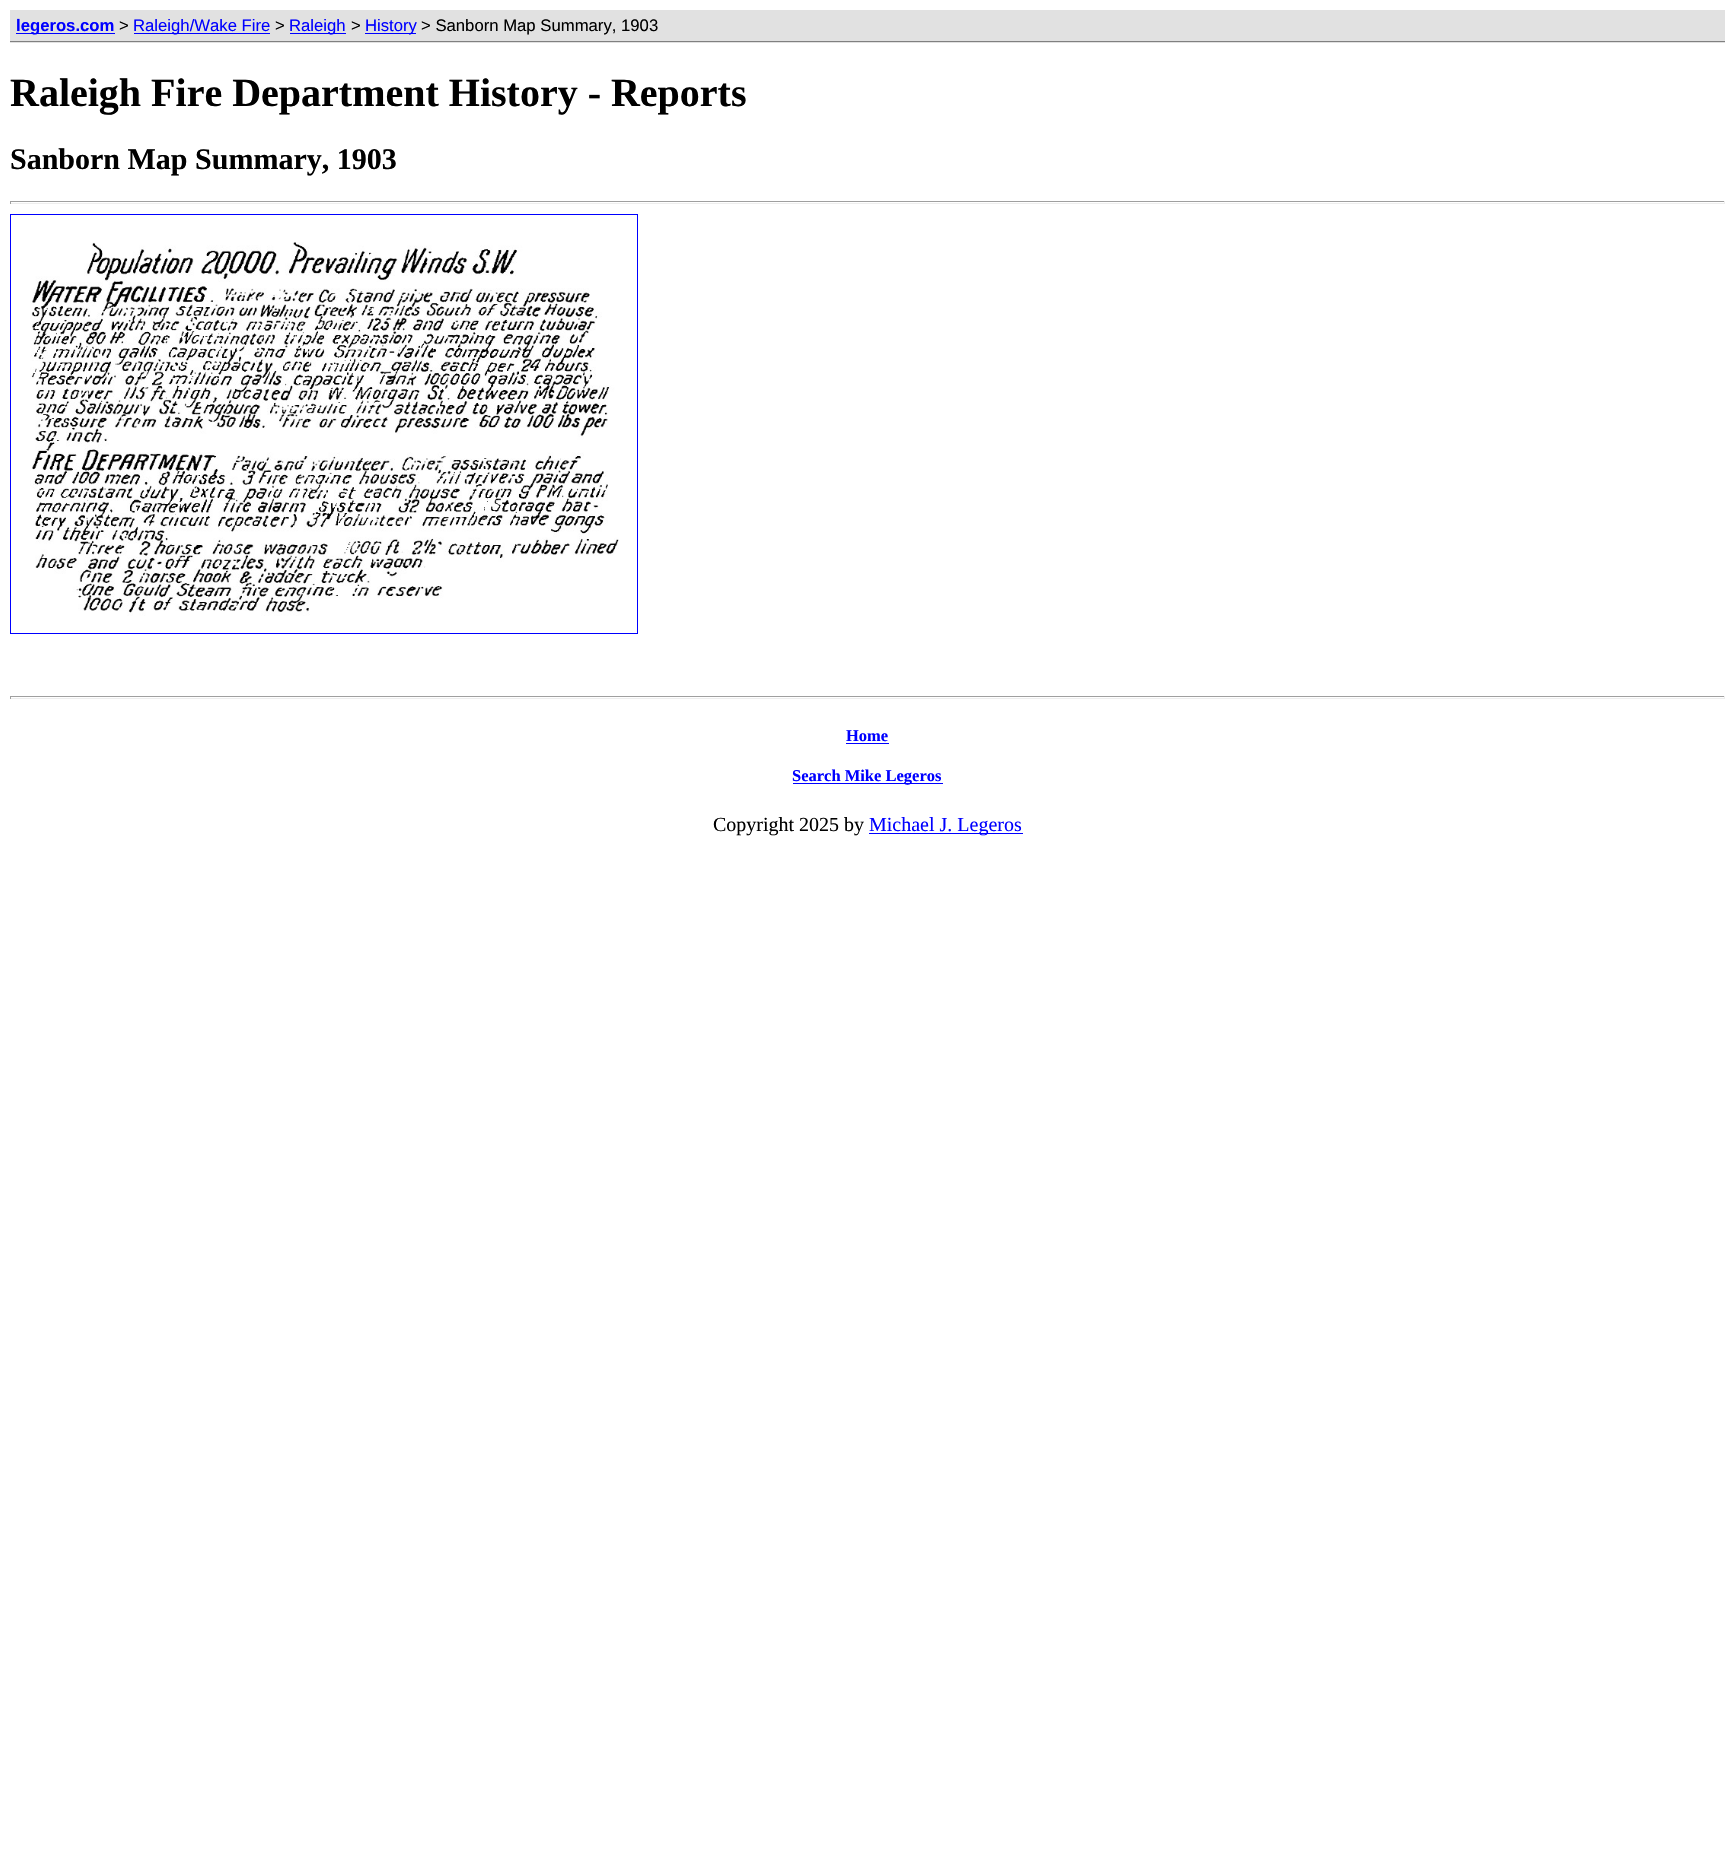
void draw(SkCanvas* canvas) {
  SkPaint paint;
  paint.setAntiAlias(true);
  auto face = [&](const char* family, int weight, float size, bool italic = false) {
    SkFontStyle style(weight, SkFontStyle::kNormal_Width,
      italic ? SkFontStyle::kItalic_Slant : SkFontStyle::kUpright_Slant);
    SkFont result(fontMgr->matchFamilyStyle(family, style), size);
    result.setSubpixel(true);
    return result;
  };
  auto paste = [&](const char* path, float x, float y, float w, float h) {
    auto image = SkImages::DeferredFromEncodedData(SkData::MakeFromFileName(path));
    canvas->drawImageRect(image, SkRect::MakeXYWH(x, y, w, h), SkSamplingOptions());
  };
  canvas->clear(0xffffffff);
  {
    const struct { float x, y, w, h; SkColor color; } items[] = {
      {10, 10, 1715, 33, 0xffe1e1e1},
      {10, 41, 1715, 1, 0xff808080},
      {16, 33, 99, 1, 0xff0000ff},
      {134, 33, 136, 1, 0xff0000ff},
      {290, 33, 56, 1, 0xff0000ff},
      {365, 33, 51, 1, 0xff0000ff},
      {10, 201, 1715, 1, 0xff9f9f9f},
      {1724, 201, 1, 3, 0xffeeeeee},
      {10, 203, 1715, 1, 0xffeeeeee},
      {10, 201, 1, 3, 0xff9f9f9f},
    };
    for (auto [x, y, w, h, color] : items) {
      paint.setColor(color);
      canvas->drawRect(SkRect::MakeXYWH(x, y, w, h), paint);
    }
  }
  paint.setStroke(true);
  paint.setStrokeWidth(1);
  paint.setColor(0xff0000ff);
  canvas->drawRect(SkRect::MakeXYWH(10.5f, 214.5f, 627, 419), paint);
  paste("img/1.png", 30, 242, 589, 374);
  paint.setStroke(false);
  {
    const struct { float x, y, w, h; SkColor color; } items[] = {
      {10, 696, 1715, 1, 0xff9f9f9f},
      {1724, 696, 1, 3, 0xffeeeeee},
      {10, 698, 1715, 1, 0xffeeeeee},
      {10, 696, 1, 3, 0xff9f9f9f},
      {846, 743, 43, 1, 0xff0000ff},
      {793, 783, 150, 1, 0xff0000ff},
      {869, 833, 154, 1, 0xff0000ff},
    };
    for (auto [x, y, w, h, color] : items) {
      paint.setColor(color);
      canvas->drawRect(SkRect::MakeXYWH(x, y, w, h), paint);
    }
  }
  auto f0 = face("Liberation Sans", 700, 16.7f);
  canvas->drawString("legeros.com", 16, 31, f0, paint);
  auto f1 = face("Liberation Sans", 400, 16.7f);
  paint.setColor(0xff000000);
  canvas->drawString(">", 119, 31, f1, paint);
  paint.setColor(0xff0000ff);
  canvas->drawString("Raleigh/Wake Fire", 133, 31, f1, paint);
  paint.setColor(0xff000000);
  canvas->drawString(">", 275, 31, f1, paint);
  paint.setColor(0xff0000ff);
  canvas->drawString("Raleigh", 289, 31, f1, paint);
  paint.setColor(0xff000000);
  canvas->drawString(">", 351, 31, f1, paint);
  paint.setColor(0xff0000ff);
  canvas->drawString("History", 365, 31, f1, paint);
  paint.setColor(0xff000000);
  canvas->drawString("> Sanborn Map Summary, 1903", 421, 31, f1, paint);
  auto f2 = face("Liberation Serif", 700, 40);
  canvas->drawString("Raleigh Fire Department History - Reports", 10, 106, f2, paint);
  auto f3 = face("Liberation Serif", 700, 30);
  canvas->drawString("Sanborn Map Summary, 1903", 10, 169, f3, paint);
  auto f4 = face("Liberation Serif", 700, 16.5f);
  paint.setColor(0xff0000ff);
  canvas->drawString("Home", 846, 741, f4, paint);
  canvas->drawString("Search Mike Legeros", 792, 781, f4, paint);
  auto f5 = face("Liberation Serif", 400, 20);
  paint.setColor(0xff000000);
  canvas->drawString("Copyright 2025 by", 713, 831, f5, paint);
  paint.setColor(0xff0000ff);
  canvas->drawString("Michael J. Legeros", 869, 831, f5, paint);
}
